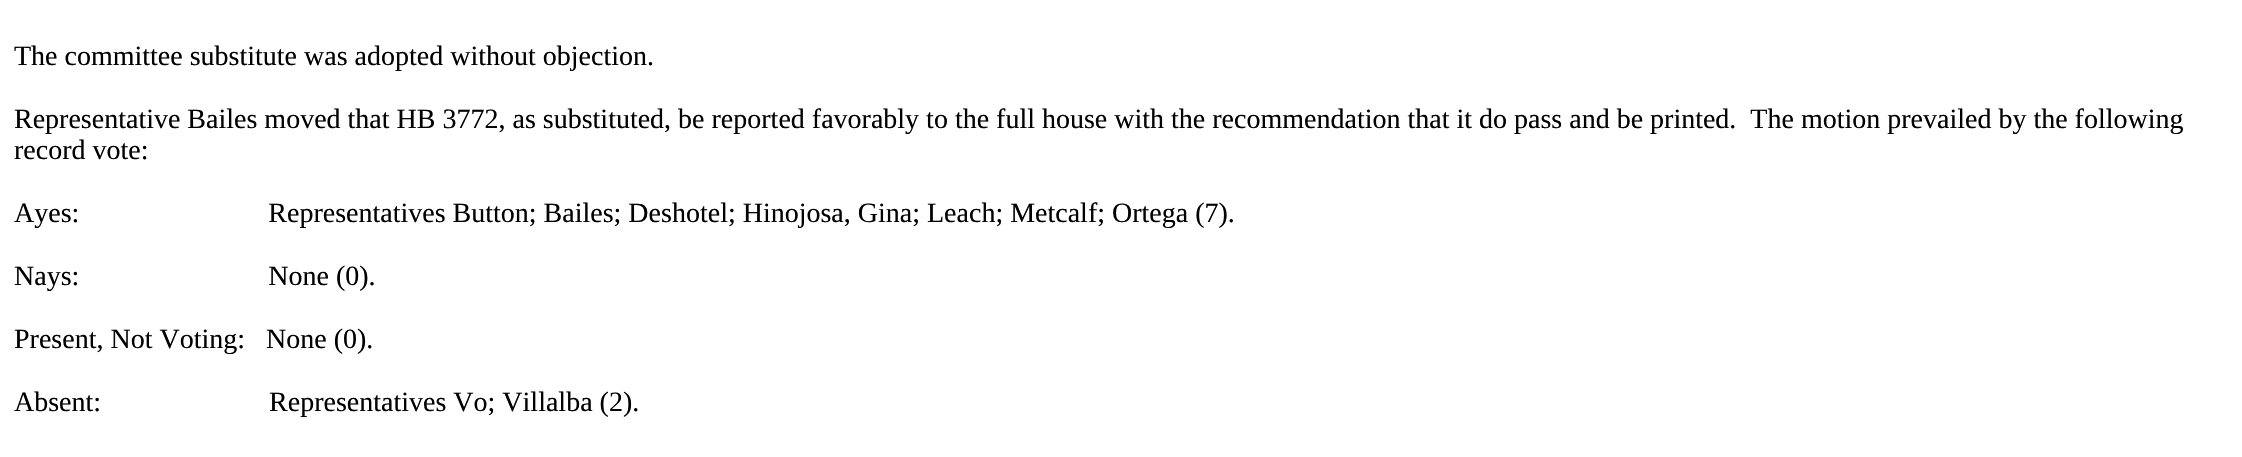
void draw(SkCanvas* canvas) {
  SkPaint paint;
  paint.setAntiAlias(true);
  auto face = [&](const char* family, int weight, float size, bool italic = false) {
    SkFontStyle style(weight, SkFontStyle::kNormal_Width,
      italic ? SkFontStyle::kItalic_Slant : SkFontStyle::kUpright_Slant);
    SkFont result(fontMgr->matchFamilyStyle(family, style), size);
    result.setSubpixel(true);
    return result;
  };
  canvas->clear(0xffffffff);
  auto f0 = face("Liberation Serif", 400, 28);
  paint.setColor(0xff000000);
  {
    const struct { const char* s; float x, y; } items[] = {
      {"The committee substitute was adopted without objection.", 14, 65},
      {"Representative Bailes moved that HB 3772, as substituted, be reported favorably to the full house with the recommendation that it do pass and be printed.  The motion prevailed by the following", 14, 128},
      {"record vote:", 14, 159},
      {"Ayes:                           Representatives Button; Bailes; Deshotel; Hinojosa, Gina; Leach; Metcalf; Ortega (7).", 14, 222},
      {"Nays:                           None (0).", 14, 285},
      {"Present, Not Voting:   None (0).", 14, 348},
      {"Absent:                        Representatives Vo; Villalba (2).", 14, 411},
    };
    for (auto [s, x, y] : items) {
      canvas->drawString(s, x, y, f0, paint);
    }
  }
}
